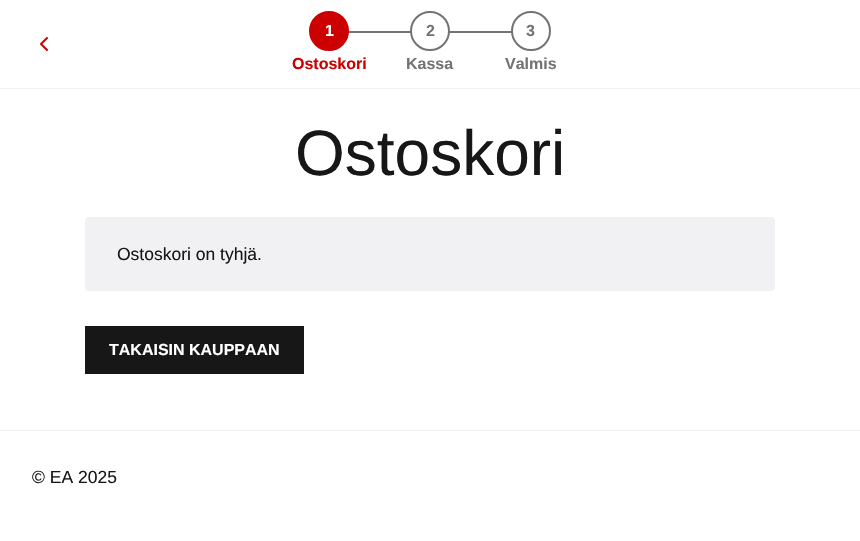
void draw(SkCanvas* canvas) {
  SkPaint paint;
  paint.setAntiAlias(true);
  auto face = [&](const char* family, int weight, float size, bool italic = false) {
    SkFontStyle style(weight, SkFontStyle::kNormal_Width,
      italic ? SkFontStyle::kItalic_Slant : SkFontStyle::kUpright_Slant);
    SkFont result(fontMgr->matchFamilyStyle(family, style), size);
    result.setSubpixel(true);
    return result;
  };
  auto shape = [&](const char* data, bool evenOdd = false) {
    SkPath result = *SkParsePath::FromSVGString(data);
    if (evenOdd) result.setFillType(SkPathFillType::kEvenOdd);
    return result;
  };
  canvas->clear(0xffffffff);
  paint.setColor(0xfff1f1f3);
  canvas->drawRect(SkRect::MakeXYWH(0, 88, 860, 1), paint);
  paint.setStroke(true);
  paint.setStrokeWidth(2);
  paint.setStrokeCap(SkPaint::kRound_Cap);
  paint.setStrokeJoin(SkPaint::kRound_Join);
  paint.setColor(0xffcc0000);
  canvas->drawPath(shape("M47 50L41 44L47 38"), paint);
  paint.setStroke(false);
  paint.setColor(0xff737373);
  canvas->drawRect(SkRect::MakeXYWH(348, 31, 63, 2), paint);
  paint.setColor(0xffcc0000);
  canvas->drawCircle(329, 31, 19, paint);
  paint.setStroke(true);
  paint.setStrokeCap(SkPaint::kButt_Cap);
  paint.setStrokeJoin(SkPaint::kMiter_Join);
  canvas->drawCircle(329, 31, 19, paint);
  paint.setStroke(false);
  paint.setColor(0xff737373);
  canvas->drawRect(SkRect::MakeXYWH(449, 31, 63, 2), paint);
  paint.setColor(0xffffffff);
  canvas->drawCircle(430, 31, 19, paint);
  paint.setStroke(true);
  paint.setColor(0xff737373);
  canvas->drawCircle(430, 31, 19, paint);
  paint.setStroke(false);
  paint.setColor(0xffffffff);
  canvas->drawCircle(531, 31, 19, paint);
  paint.setStroke(true);
  paint.setColor(0xff737373);
  canvas->drawCircle(531, 31, 19, paint);
  paint.setStroke(false);
  paint.setColor(0xfff1f1f3);
  canvas->drawRoundRect(SkRect::MakeXYWH(85, 217, 690, 74), 4, 4, paint);
  paint.setColor(0xff171717);
  canvas->drawRect(SkRect::MakeXYWH(85, 326, 219, 48), paint);
  paint.setColor(0xfff1f1f3);
  canvas->drawRect(SkRect::MakeXYWH(0, 430, 860, 1), paint);
  auto f0 = face("Liberation Sans", 700, 16);
  paint.setColor(0xffffffff);
  canvas->drawString("1", 325, 36, f0, paint);
  paint.setColor(0xffcc0000);
  canvas->drawString("Ostoskori", 292, 69, f0, paint);
  paint.setColor(0xff737373);
  {
    const struct { const char* s; float x, y; } items[] = {
      {"2", 426, 36},
      {"Kassa", 406, 69},
      {"3", 526, 36},
      {"Valmis", 505, 69},
    };
    for (auto [s, x, y] : items) {
      canvas->drawString(s, x, y, f0, paint);
    }
  }
  auto f1 = face("Liberation Sans", 400, 64);
  paint.setColor(0xff171717);
  canvas->drawString("Ostoskori", 295, 175, f1, paint);
  auto f2 = face("Liberation Sans", 400, 17.5f);
  canvas->drawString("Ostoskori on tyhjä.", 117, 260, f2, paint);
  paint.setColor(0xffffffff);
  canvas->drawString("TAKAISIN KAUPPAAN", 109, 355, f0, paint);
  paint.setColor(0xff171717);
  canvas->drawString("© EA 2025", 32, 483, f2, paint);
}
